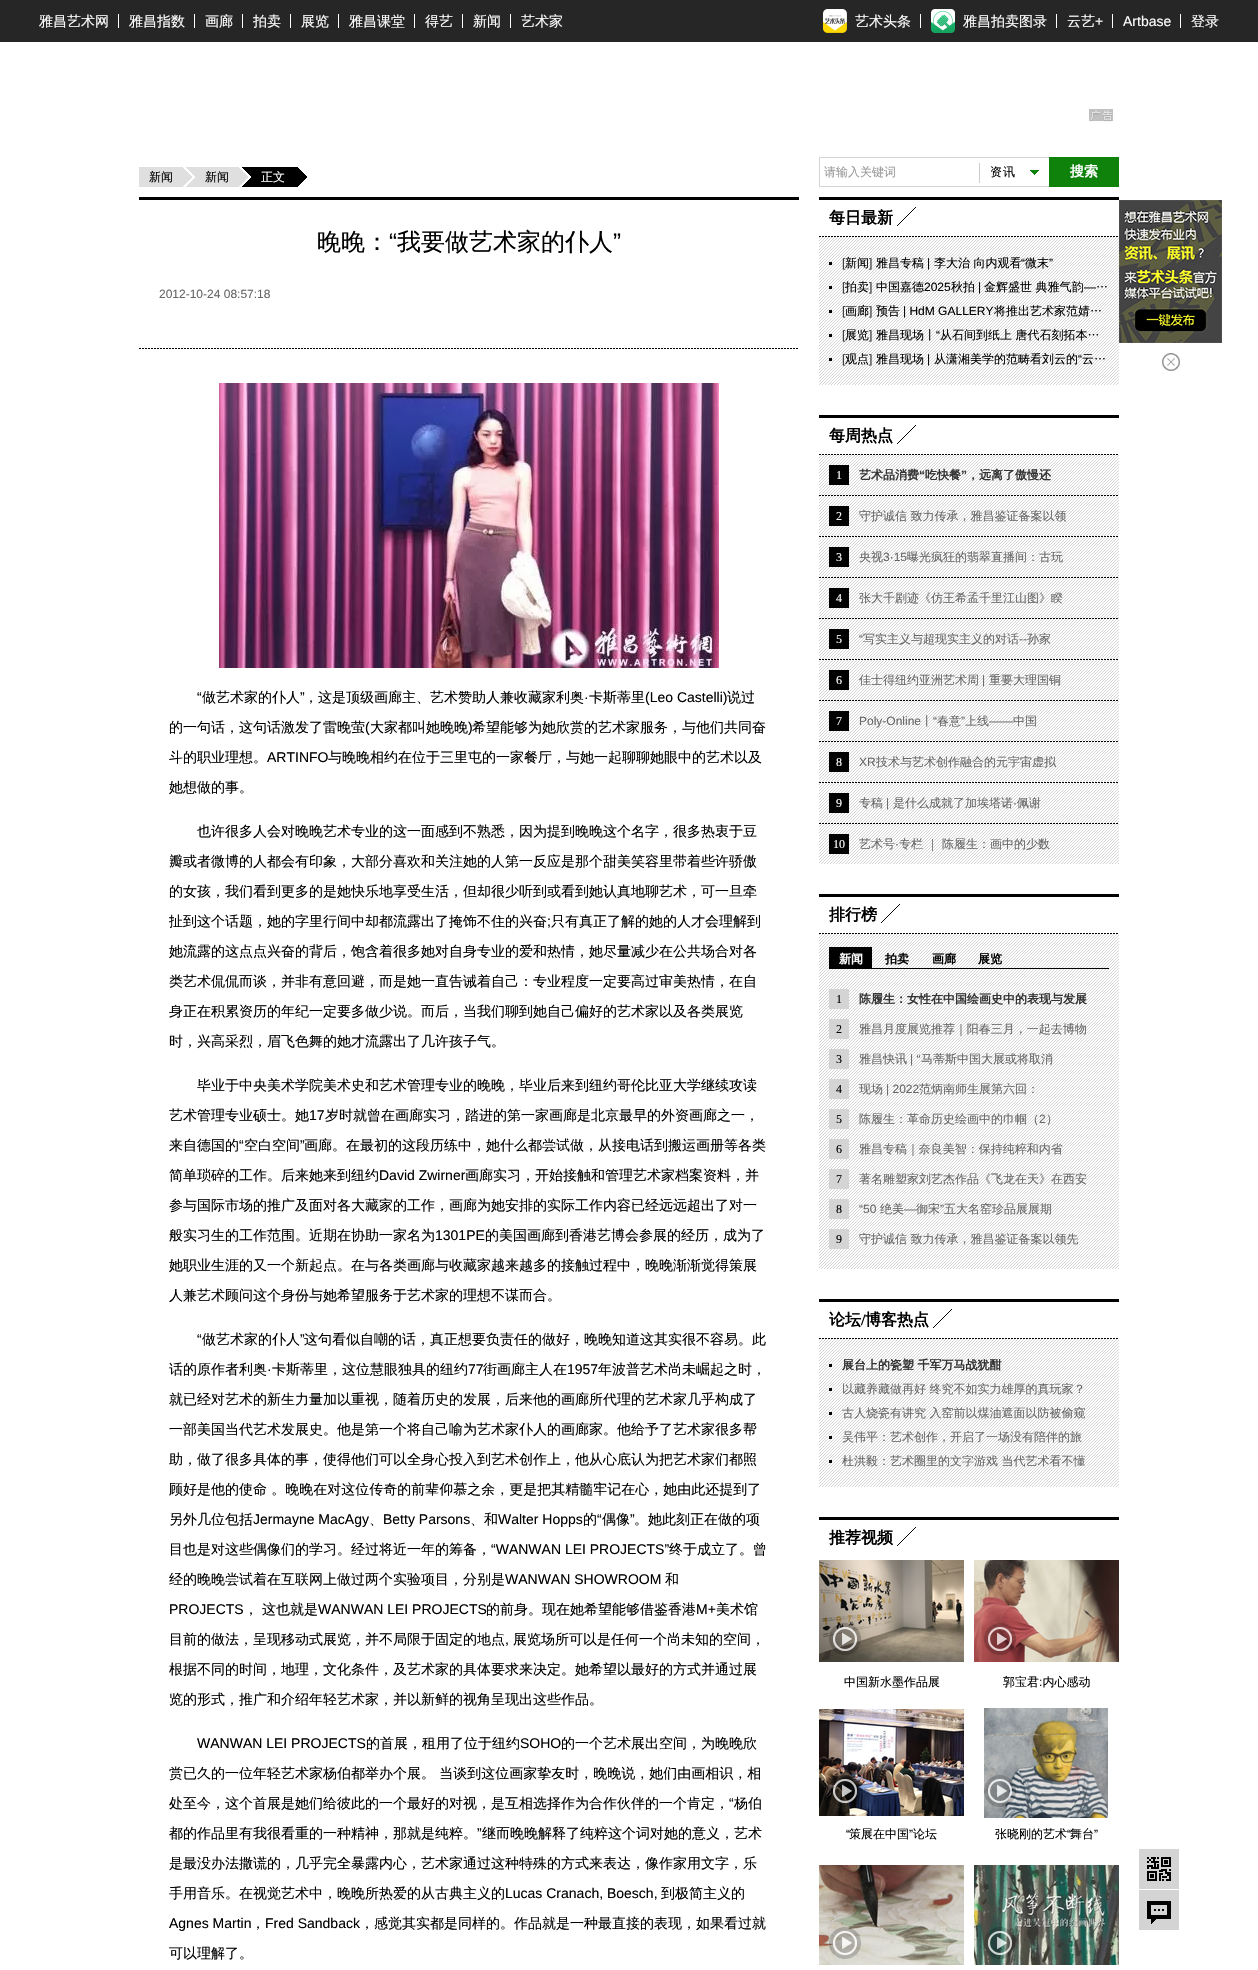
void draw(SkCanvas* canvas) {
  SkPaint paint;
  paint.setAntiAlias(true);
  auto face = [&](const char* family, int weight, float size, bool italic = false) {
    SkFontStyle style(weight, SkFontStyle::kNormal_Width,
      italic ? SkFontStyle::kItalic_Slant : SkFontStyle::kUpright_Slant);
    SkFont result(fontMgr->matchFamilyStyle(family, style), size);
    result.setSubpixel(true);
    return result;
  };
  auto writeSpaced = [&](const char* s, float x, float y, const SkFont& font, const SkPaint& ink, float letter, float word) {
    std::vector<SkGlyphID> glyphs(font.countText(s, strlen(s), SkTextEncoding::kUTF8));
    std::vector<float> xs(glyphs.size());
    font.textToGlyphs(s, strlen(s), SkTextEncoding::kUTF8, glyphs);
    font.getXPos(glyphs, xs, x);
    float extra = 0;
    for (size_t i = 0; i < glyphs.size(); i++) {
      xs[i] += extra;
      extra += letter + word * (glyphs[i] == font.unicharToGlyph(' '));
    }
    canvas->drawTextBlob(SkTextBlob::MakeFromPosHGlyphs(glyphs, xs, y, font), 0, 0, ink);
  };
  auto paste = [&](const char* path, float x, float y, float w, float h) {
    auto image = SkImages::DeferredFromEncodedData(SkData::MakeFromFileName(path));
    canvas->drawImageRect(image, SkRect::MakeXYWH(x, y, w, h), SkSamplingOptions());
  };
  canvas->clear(0xffffffff);
  {
    const struct { float x, y, w, h; SkColor color; } items[] = {
      {0, 0, 1258, 42, 0xff262626},
      {118, 14, 1, 14, 0xffffffff},
      {194, 14, 1, 14, 0xffffffff},
      {242, 14, 1, 14, 0xffffffff},
      {290, 14, 1, 14, 0xffffffff},
      {338, 14, 1, 14, 0xffffffff},
      {414, 14, 1, 14, 0xffffffff},
      {462, 14, 1, 14, 0xffffffff},
      {510, 14, 1, 14, 0xffffffff},
    };
    for (auto [x, y, w, h, color] : items) {
      paint.setColor(color);
      canvas->drawRect(SkRect::MakeXYWH(x, y, w, h), paint);
    }
  }
  paste("img/1.png", 823, 9, 24, 24);
  canvas->drawRect(SkRect::MakeXYWH(920, 14, 1, 14), paint);
  paste("img/2.png", 931, 9, 24, 24);
  {
    const struct { float x, y, w, h; SkColor color; } items[] = {
      {1056, 14, 1, 14, 0xffffffff},
      {1112, 14, 1, 14, 0xffffffff},
      {1180, 14, 1, 14, 0xffffffff},
    };
    for (auto [x, y, w, h, color] : items) {
      paint.setColor(color);
      canvas->drawRect(SkRect::MakeXYWH(x, y, w, h), paint);
    }
  }
  paste("img/3.png", 1089, 109, 24, 13);
  paint.setColor(0xffdfdfdf);
  canvas->drawRect(SkRect::MakeXYWH(139, 167, 44, 20), paint);
  paste("img/4.png", 183, 167, 12, 20);
  canvas->drawRect(SkRect::MakeXYWH(195, 167, 44, 20), paint);
  paste("img/5.png", 239, 167, 12, 20);
  paint.setColor(0xff000000);
  canvas->drawRect(SkRect::MakeXYWH(251, 167, 47, 20), paint);
  paste("img/6.png", 298, 167, 9, 20);
  canvas->drawRect(SkRect::MakeXYWH(139, 197, 660, 3), paint);
  paste("img/7.png", 139, 348, 659, 1);
  paste("img/8.png", 219, 383, 500, 285);
  {
    const struct { float x, y, w, h; SkColor color; } items[] = {
      {819, 157, 230, 1, 0xffd4d4d4},
      {819, 186, 230, 1, 0xffd4d4d4},
      {819, 157, 1, 30, 0xffd4d4d4},
      {979, 163, 1, 20, 0xffcccccc},
    };
    for (auto [x, y, w, h, color] : items) {
      paint.setColor(color);
      canvas->drawRect(SkRect::MakeXYWH(x, y, w, h), paint);
    }
  }
  paste("img/9.png", 1030, 170, 9, 5);
  paint.setColor(0xff0f820c);
  canvas->drawRect(SkRect::MakeXYWH(1049, 157, 70, 30), paint);
  paste("img/10.png", 819, 236, 299, 1);
  paint.setColor(0xff000000);
  canvas->drawRect(SkRect::MakeXYWH(819, 197, 300, 3), paint);
  paste("img/11.png", 897, 207, 19, 19);
  paste("img/12.png", 1119, 200, 103, 143);
  paste("img/13.png", 1162, 353, 18, 18);
  paste("img/14.png", 819, 237, 300, 148);
  {
    const struct { float x, y, w, h; SkColor color; } items[] = {
      {829, 262, 3, 3, 0xff000000},
      {829, 286, 3, 3, 0xff000000},
      {829, 310, 3, 3, 0xff000000},
      {829, 334, 3, 3, 0xff000000},
      {829, 358, 3, 3, 0xff000000},
      {819, 415, 300, 3, 0xff000000},
    };
    for (auto [x, y, w, h, color] : items) {
      paint.setColor(color);
      canvas->drawRect(SkRect::MakeXYWH(x, y, w, h), paint);
    }
  }
  paste("img/11.png", 897, 425, 19, 19);
  paste("img/15.png", 819, 454, 300, 410);
  paste("img/10.png", 819, 454, 299, 1);
  canvas->drawRect(SkRect::MakeXYWH(829, 465, 20, 20), paint);
  paste("img/10.png", 819, 495, 299, 1);
  canvas->drawRect(SkRect::MakeXYWH(829, 506, 20, 20), paint);
  paste("img/16.png", 819, 536, 300, 1);
  canvas->drawRect(SkRect::MakeXYWH(829, 547, 20, 20), paint);
  paste("img/10.png", 819, 577, 299, 1);
  canvas->drawRect(SkRect::MakeXYWH(829, 588, 20, 20), paint);
  paste("img/10.png", 819, 618, 299, 1);
  canvas->drawRect(SkRect::MakeXYWH(829, 629, 20, 20), paint);
  paste("img/16.png", 819, 659, 300, 1);
  canvas->drawRect(SkRect::MakeXYWH(829, 670, 20, 20), paint);
  paste("img/10.png", 819, 700, 299, 1);
  canvas->drawRect(SkRect::MakeXYWH(829, 711, 20, 20), paint);
  paste("img/10.png", 819, 741, 299, 1);
  canvas->drawRect(SkRect::MakeXYWH(829, 752, 20, 20), paint);
  paste("img/16.png", 819, 782, 300, 1);
  canvas->drawRect(SkRect::MakeXYWH(829, 793, 20, 20), paint);
  paste("img/10.png", 819, 823, 299, 1);
  canvas->drawRect(SkRect::MakeXYWH(829, 834, 20, 20), paint);
  paste("img/10.png", 819, 933, 299, 1);
  canvas->drawRect(SkRect::MakeXYWH(819, 894, 300, 3), paint);
  paste("img/11.png", 881, 904, 19, 19);
  paste("img/17.png", 819, 934, 300, 335);
  {
    const struct { float x, y, w, h; SkColor color; } items[] = {
      {829, 968, 280, 1, 0xff000000},
      {829, 947, 43, 21, 0xff000000},
      {829, 989, 20, 20, 0xffd4d4d4},
      {829, 1019, 20, 20, 0xffd4d4d4},
      {829, 1049, 20, 20, 0xffd4d4d4},
      {829, 1079, 20, 20, 0xffd4d4d4},
      {829, 1109, 20, 20, 0xffd4d4d4},
      {829, 1139, 20, 20, 0xffd4d4d4},
      {829, 1169, 20, 20, 0xffd4d4d4},
      {829, 1199, 20, 20, 0xffd4d4d4},
      {829, 1229, 20, 20, 0xffd4d4d4},
    };
    for (auto [x, y, w, h, color] : items) {
      paint.setColor(color);
      canvas->drawRect(SkRect::MakeXYWH(x, y, w, h), paint);
    }
  }
  paste("img/10.png", 819, 1338, 299, 1);
  paint.setColor(0xff000000);
  canvas->drawRect(SkRect::MakeXYWH(819, 1299, 300, 3), paint);
  paste("img/11.png", 933, 1309, 19, 19);
  paste("img/14.png", 819, 1339, 300, 148);
  {
    const struct { float x, y, w, h; SkColor color; } items[] = {
      {829, 1364, 3, 3, 0xff000000},
      {829, 1388, 3, 3, 0xff000000},
      {829, 1412, 3, 3, 0xff000000},
      {829, 1436, 3, 3, 0xff000000},
      {829, 1460, 3, 3, 0xff000000},
      {819, 1517, 300, 3, 0xff000000},
    };
    for (auto [x, y, w, h, color] : items) {
      paint.setColor(color);
      canvas->drawRect(SkRect::MakeXYWH(x, y, w, h), paint);
    }
  }
  paste("img/11.png", 897, 1527, 19, 19);
  paste("img/18.png", 819, 1560, 145, 102);
  paste("img/19.png", 829, 1623, 32, 32);
  paste("img/20.png", 974, 1560, 145, 102);
  paste("img/21.png", 984, 1623, 32, 32);
  paste("img/22.png", 819, 1709, 145, 107);
  paste("img/23.png", 829, 1775, 32, 32);
  paste("img/24.png", 984, 1708, 124, 110);
  paste("img/25.png", 984, 1775, 32, 32);
  paste("img/26.png", 819, 1865, 145, 100);
  paste("img/27.png", 829, 1927, 32, 32);
  paste("img/28.png", 974, 1865, 145, 100);
  paste("img/29.png", 984, 1927, 32, 32);
  paint.setColor(0xffd4d4d4);
  canvas->drawRect(SkRect::MakeXYWH(1139, 1849, 40, 81), paint);
  paste("img/30.png", 1147, 1857, 24, 24);
  paint.setColor(0xffffffff);
  canvas->drawRect(SkRect::MakeXYWH(1139, 1889, 40, 1), paint);
  paste("img/31.png", 1147, 1901, 24, 23);
  auto f0 = face("WenQuanYi Zen Hei", 500, 14);
  paint.setColor(0xfffefefe);
  {
    const struct { const char* s; float x, y; } items[] = {
      {"雅昌艺术网", 39, 26},
      {"雅昌指数", 129, 26},
      {"画廊", 205, 26},
      {"拍卖", 253, 26},
      {"展览", 301, 26},
      {"雅昌课堂", 349, 26},
      {"得艺", 425, 26},
      {"新闻", 473, 26},
      {"艺术家", 521, 26},
      {"艺术头条", 855, 26},
      {"雅昌拍卖图录", 963, 26},
      {"云艺", 1067, 26},
    };
    for (auto [s, x, y] : items) {
      canvas->drawString(s, x, y, f0, paint);
    }
  }
  auto f1 = face("Liberation Sans", 400, 14);
  canvas->drawString("+", 1095, 26, f1, paint);
  canvas->drawString("Artbase", 1123, 26, f1, paint);
  canvas->drawString("登录", 1191, 26, f0, paint);
  auto f2 = face("WenQuanYi Zen Hei", 500, 12);
  paint.setColor(0xff000000);
  canvas->drawString("新闻", 149, 181, f2, paint);
  canvas->drawString("新闻", 205, 181, f2, paint);
  paint.setColor(0xfffefefe);
  canvas->drawString("正文", 261, 181, f2, paint);
  auto f3 = face("WenQuanYi Zen Hei", 500, 24);
  paint.setColor(0xff000000);
  canvas->drawString("晚晚：", 317, 250, f3, paint);
  auto f4 = face("Liberation Sans", 400, 24);
  canvas->drawString("“", 389, 250, f4, paint);
  canvas->drawString("我要做艺术家的仆人", 397, 250, f3, paint);
  canvas->drawString("”", 613, 250, f4, paint);
  auto f5 = face("Liberation Sans", 400, 12);
  paint.setColor(0xff666666);
  canvas->drawString("2012-10-24 08:57:18", 159, 298, f5, paint);
  paint.setColor(0xff000000);
  canvas->drawString("“", 197, 702, f1, paint);
  canvas->drawString("做艺术家的仆人", 202, 702, f0, paint);
  canvas->drawString("”", 300, 702, f1, paint);
  canvas->drawString("，这是顶级画廊主、艺术赞助人兼收藏家利奥", 304, 702, f0, paint);
  canvas->drawString("卡斯蒂里", 589, 702, f0, paint);
  canvas->drawString("(Leo Castelli)", 645, 702, f1, paint);
  canvas->drawString("说过", 727, 702, f0, paint);
  canvas->drawString("·", 584, 702, f1, paint);
  canvas->drawString("的一句话，这句话激发了雷晚萤", 169, 732, f0, paint);
  canvas->drawString("(", 365, 732, f1, paint);
  canvas->drawString("大家都叫她晚晚", 370, 732, f0, paint);
  canvas->drawString(")", 468, 732, f1, paint);
  canvas->drawString("希望能够为她欣赏的艺术家服务，与他们共同奋", 472, 732, f0, paint);
  canvas->drawString("斗的职业理想。", 169, 762, f0, paint);
  canvas->drawString("ARTINFO", 267, 762, f1, paint);
  {
    const struct { const char* s; float x, y; } items[] = {
      {"与晚晚相约在位于三里屯的一家餐厅，与她一起聊聊她眼中的艺术以及", 328, 762},
      {"她想做的事。", 169, 792},
      {"也许很多人会对晚晚艺术专业的这一面感到不熟悉，因为提到晚晚这个名字，很多热衷于豆", 197, 836},
      {"瓣或者微博的人都会有印象，大部分喜欢和关注她的人第一反应是那个甜美笑容里带着些许骄傲", 169, 866},
      {"的女孩，我们看到更多的是她快乐地享受生活，但却很少听到或看到她认真地聊艺术，可一旦牵", 169, 896},
      {"扯到这个话题，她的字里行间中却都流露出了掩饰不住的兴奋", 169, 926},
    };
    for (auto [s, x, y] : items) {
      canvas->drawString(s, x, y, f0, paint);
    }
  }
  canvas->drawString(";", 547, 926, f1, paint);
  {
    const struct { const char* s; float x, y; } items[] = {
      {"只有真正了解的她的人才会理解到", 551, 926},
      {"她流露的这点点兴奋的背后，饱含着很多她对自身专业的爱和热情，她尽量减少在公共场合对各", 169, 956},
      {"类艺术侃侃而谈，并非有意回避，而是她一直告诫着自己：专业程度一定要高过审美热情，在自", 169, 986},
      {"身正在积累资历的年纪一定要多做少说。而后，当我们聊到她自己偏好的艺术家以及各类展览", 169, 1016},
      {"时，兴高采烈，眉飞色舞的她才流露出了几许孩子气。", 169, 1046},
      {"毕业于中央美术学院美术史和艺术管理专业的晚晚，毕业后来到纽约哥伦比亚大学继续攻读", 197, 1090},
      {"艺术管理专业硕士。她", 169, 1120},
    };
    for (auto [s, x, y] : items) {
      canvas->drawString(s, x, y, f0, paint);
    }
  }
  canvas->drawString("17", 309, 1120, f1, paint);
  canvas->drawString("岁时就曾在画廊实习，踏进的第一家画廊是北京最早的外资画廊之一，", 325, 1120, f0, paint);
  canvas->drawString("来自德国的", 169, 1150, f0, paint);
  canvas->drawString("“", 239, 1150, f1, paint);
  canvas->drawString("空白空间", 244, 1150, f0, paint);
  canvas->drawString("”", 300, 1150, f1, paint);
  canvas->drawString("画廊。在最初的这段历练中，她什么都尝试做，从接电话到搬运画册等各类", 304, 1150, f0, paint);
  canvas->drawString("简单琐碎的工作。后来她来到纽约", 169, 1180, f0, paint);
  canvas->drawString("David Zwirner", 379, 1180, f1, paint);
  {
    const struct { const char* s; float x, y; } items[] = {
      {"画廊实习，开始接触和管理艺术家档案资料，并", 465, 1180},
      {"参与国际市场的推广及面对各大藏家的工作，画廊为她安排的实际工作内容已经远远超出了对一", 169, 1210},
      {"般实习生的工作范围。近期在协助一家名为", 169, 1240},
    };
    for (auto [s, x, y] : items) {
      canvas->drawString(s, x, y, f0, paint);
    }
  }
  canvas->drawString("1301PE", 435, 1240, f1, paint);
  {
    const struct { const char* s; float x, y; } items[] = {
      {"的美国画廊到香港艺博会参展的经历，成为了", 485, 1240},
      {"她职业生涯的又一个新起点。在与各类画廊与收藏家越来越多的接触过程中，晚晚渐渐觉得策展", 169, 1270},
      {"人兼艺术顾问这个身份与她希望服务于艺术家的理想不谋而合。", 169, 1300},
    };
    for (auto [s, x, y] : items) {
      canvas->drawString(s, x, y, f0, paint);
    }
  }
  canvas->drawString("“", 197, 1344, f1, paint);
  canvas->drawString("做艺术家的仆人", 202, 1344, f0, paint);
  canvas->drawString("”", 300, 1344, f1, paint);
  canvas->drawString("这句看似自嘲的话，真正想要负责任的做好，晚晚知道这其实很不容易。此", 304, 1344, f0, paint);
  canvas->drawString("话的原作者利奥", 169, 1374, f0, paint);
  canvas->drawString("·", 267, 1374, f1, paint);
  canvas->drawString("卡斯蒂里，这位慧眼独具的纽约", 272, 1374, f0, paint);
  canvas->drawString("77", 468, 1374, f1, paint);
  canvas->drawString("街画廊主人在", 483, 1374, f0, paint);
  canvas->drawString("1957", 567, 1374, f1, paint);
  {
    const struct { const char* s; float x, y; } items[] = {
      {"年波普艺术尚未崛起之时，", 598, 1374},
      {"就已经对艺术的新生力量加以重视，随着历史的发展，后来他的画廊所代理的艺术家几乎构成了", 169, 1404},
      {"一部美国当代艺术发展史。他是第一个将自己喻为艺术家仆人的画廊家。他给予了艺术家很多帮", 169, 1434},
      {"助，做了很多具体的事，使得他们可以全身心投入到艺术创作上，他从心底认为把艺术家们都照", 169, 1464},
      {"顾好是他的使命 。晚晚在对这位传奇的前辈仰慕之余，更是把其精髓牢记在心，她由此还提到了", 169, 1494},
      {"另外几位包括", 169, 1524},
    };
    for (auto [s, x, y] : items) {
      canvas->drawString(s, x, y, f0, paint);
    }
  }
  canvas->drawString("Jermayne MacAgy", 253, 1524, f1, paint);
  canvas->drawString("Betty Parsons", 383, 1524, f1, paint);
  canvas->drawString("、和", 470, 1524, f0, paint);
  canvas->drawString("Walter Hopps", 498, 1524, f1, paint);
  canvas->drawString("的", 583, 1524, f0, paint);
  canvas->drawString("“", 597, 1524, f1, paint);
  canvas->drawString("偶像", 602, 1524, f0, paint);
  canvas->drawString("”", 630, 1524, f1, paint);
  {
    const struct { const char* s; float x, y; } items[] = {
      {"。她此刻正在做的项", 634, 1524},
      {"、", 369, 1524},
      {"目也是对这些偶像们的学习。经过将近一年的筹备，", 169, 1554},
    };
    for (auto [s, x, y] : items) {
      canvas->drawString(s, x, y, f0, paint);
    }
  }
  canvas->drawString("“WANWAN LEI PROJECTS”", 491, 1554, f1, paint);
  canvas->drawString("终于成立了。曾", 669, 1554, f0, paint);
  canvas->drawString("经的晚晚尝试着在互联网上做过两个实验项目，分别是", 169, 1584, f0, paint);
  canvas->drawString("WANWAN SHOWROOM", 505, 1584, f1, paint);
  canvas->drawString("和", 665, 1584, f0, paint);
  canvas->drawString("PROJECTS", 169, 1614, f1, paint);
  canvas->drawString("，", 244, 1614, f0, paint);
  canvas->drawString("这也就是", 262, 1614, f0, paint);
  canvas->drawString("WANWAN LEI PROJECTS", 318, 1614, f1, paint);
  canvas->drawString("的前身。现在她希望能够借鉴香港", 486, 1614, f0, paint);
  canvas->drawString("M+", 696, 1614, f1, paint);
  canvas->drawString("美术馆", 716, 1614, f0, paint);
  canvas->drawString("目前的做法，呈现移动式展览，并不局限于固定的地点", 169, 1644, f0, paint);
  canvas->drawString(",", 505, 1644, f1, paint);
  {
    const struct { const char* s; float x, y; } items[] = {
      {"展览场所可以是任何一个尚未知的空间，", 513, 1644},
      {"根据不同的时间，地理，文化条件，及艺术家的具体要求来决定。她希望以最好的方式并通过展", 169, 1674},
      {"览的形式，推广和介绍年轻艺术家，并以新鲜的视角呈现出这些作品。", 169, 1704},
    };
    for (auto [s, x, y] : items) {
      canvas->drawString(s, x, y, f0, paint);
    }
  }
  canvas->drawString("WANWAN LEI PROJECTS", 197, 1748, f1, paint);
  canvas->drawString("的首展，租用了位于纽约", 366, 1748, f0, paint);
  canvas->drawString("SOHO", 520, 1748, f1, paint);
  {
    const struct { const char* s; float x, y; } items[] = {
      {"的一个艺术展出空间，为晚晚欣", 561, 1748},
      {"赏已久的一位年轻艺术家杨伯都举办个展。 当谈到这位画家挚友时，晚晚说，她们由画相识，相", 169, 1778},
      {"处至今，这个首展是她们给彼此的一个最好的对视，是互相选择作为合作伙伴的一个肯定，", 169, 1808},
    };
    for (auto [s, x, y] : items) {
      canvas->drawString(s, x, y, f0, paint);
    }
  }
  canvas->drawString("“", 729, 1808, f1, paint);
  canvas->drawString("杨伯", 734, 1808, f0, paint);
  canvas->drawString("都的作品里有我很看重的一种精神，那就是纯粹。", 169, 1838, f0, paint);
  canvas->drawString("”", 477, 1838, f1, paint);
  {
    const struct { const char* s; float x, y; } items[] = {
      {"继而晚晚解释了纯粹这个词对她的意义，艺术", 482, 1838},
      {"是最没办法撒谎的，几乎完全暴露内心，艺术家通过这种特殊的方式来表达，像作家用文字，乐", 169, 1868},
      {"手用音乐。在视觉艺术中，晚晚所热爱的从古典主义的", 169, 1898},
    };
    for (auto [s, x, y] : items) {
      canvas->drawString(s, x, y, f0, paint);
    }
  }
  canvas->drawString("Lucas Cranach, Boesch,", 505, 1898, f1, paint);
  canvas->drawString("到极简主义的", 661, 1898, f0, paint);
  canvas->drawString("Agnes Martin", 169, 1928, f1, paint);
  canvas->drawString("，", 251, 1928, f0, paint);
  canvas->drawString("Fred Sandback", 265, 1928, f1, paint);
  canvas->drawString("，感觉其实都是同样的。作品就是一种最直接的表现，如果看过就", 360, 1928, f0, paint);
  canvas->drawString("可以理解了。", 169, 1958, f0, paint);
  paint.setColor(0xff999999);
  canvas->drawString("请输入关键词", 824, 176, f2, paint);
  paint.setColor(0xff000000);
  writeSpaced("资讯", 990, 176, f2, paint, 1, 0);
  auto f6 = face("WenQuanYi Zen Hei", 700, 14);
  paint.setColor(0xfffefefe);
  canvas->drawString("搜索", 1070, 176, f6, paint);
  auto f7 = face("WenQuanYi Zen Hei", 700, 16);
  paint.setColor(0xff000000);
  canvas->drawString("每日最新", 829, 223, f7, paint);
  paint.setColor(0xff333333);
  canvas->drawString("[", 842, 267, f5, paint);
  paint.setColor(0xff000000);
  canvas->drawString("新闻", 845, 267, f2, paint);
  paint.setColor(0xff333333);
  canvas->drawString("]", 869, 267, f5, paint);
  paint.setColor(0xff000000);
  canvas->drawString("雅昌专稿", 876, 267, f2, paint);
  canvas->drawString("|", 927, 267, f5, paint);
  canvas->drawString("李大治 向内观看", 934, 267, f2, paint);
  canvas->drawString("“", 1021, 267, f5, paint);
  canvas->drawString("微末", 1025, 267, f2, paint);
  canvas->drawString("”", 1049, 267, f5, paint);
  paint.setColor(0xff333333);
  canvas->drawString("[", 842, 291, f5, paint);
  paint.setColor(0xff000000);
  canvas->drawString("拍卖", 845, 291, f2, paint);
  paint.setColor(0xff333333);
  canvas->drawString("]", 869, 291, f5, paint);
  paint.setColor(0xff000000);
  canvas->drawString("中国嘉德", 876, 291, f2, paint);
  canvas->drawString("2025", 924, 291, f5, paint);
  canvas->drawString("秋拍", 951, 291, f2, paint);
  canvas->drawString("|", 978, 291, f5, paint);
  canvas->drawString("金辉盛世 典雅气韵", 984, 291, f2, paint);
  canvas->drawString("—", 1084, 291, f5, paint);
  canvas->drawString("…", 1096, 291, f2, paint);
  paint.setColor(0xff333333);
  canvas->drawString("[", 842, 315, f5, paint);
  paint.setColor(0xff000000);
  canvas->drawString("画廊", 845, 315, f2, paint);
  paint.setColor(0xff333333);
  canvas->drawString("]", 869, 315, f5, paint);
  paint.setColor(0xff000000);
  canvas->drawString("预告", 876, 315, f2, paint);
  canvas->drawString("| HdM GALLERY", 903, 315, f5, paint);
  canvas->drawString("将推出艺术家范婧…", 994, 315, f2, paint);
  paint.setColor(0xff333333);
  canvas->drawString("[", 842, 339, f5, paint);
  paint.setColor(0xff000000);
  canvas->drawString("展览", 845, 339, f2, paint);
  paint.setColor(0xff333333);
  canvas->drawString("]", 869, 339, f5, paint);
  paint.setColor(0xff000000);
  canvas->drawString("雅昌现场丨", 876, 339, f2, paint);
  canvas->drawString("“", 936, 339, f5, paint);
  canvas->drawString("从石间到纸上 唐代石刻拓本…", 940, 339, f2, paint);
  paint.setColor(0xff333333);
  canvas->drawString("[", 842, 363, f5, paint);
  paint.setColor(0xff000000);
  canvas->drawString("观点", 845, 363, f2, paint);
  paint.setColor(0xff333333);
  canvas->drawString("]", 869, 363, f5, paint);
  paint.setColor(0xff000000);
  canvas->drawString("雅昌现场", 876, 363, f2, paint);
  canvas->drawString("|", 927, 363, f5, paint);
  canvas->drawString("从潇湘美学的范畴看刘云的", 934, 363, f2, paint);
  canvas->drawString("“", 1078, 363, f5, paint);
  canvas->drawString("云…", 1082, 363, f2, paint);
  canvas->drawString("每周热点", 829, 441, f7, paint);
  auto f8 = face("Liberation Serif", 400, 12);
  paint.setColor(0xfffefefe);
  canvas->drawString("1", 836, 479, f8, paint);
  auto f9 = face("WenQuanYi Zen Hei", 700, 12);
  paint.setColor(0xff333333);
  canvas->drawString("艺术品消费", 859, 479, f9, paint);
  auto f10 = face("Liberation Sans", 700, 12);
  canvas->drawString("“", 919, 479, f10, paint);
  canvas->drawString("吃快餐", 925, 479, f9, paint);
  canvas->drawString("”", 961, 479, f10, paint);
  canvas->drawString("，远离了傲慢还", 967, 479, f9, paint);
  paint.setColor(0xfffefefe);
  canvas->drawString("2", 836, 520, f8, paint);
  paint.setColor(0xff666666);
  canvas->drawString("守护诚信 致力传承，雅昌鉴证备案以领", 859, 520, f2, paint);
  paint.setColor(0xfffefefe);
  canvas->drawString("3", 836, 561, f8, paint);
  paint.setColor(0xff666666);
  canvas->drawString("央视", 859, 561, f2, paint);
  canvas->drawString("3·15", 883, 561, f5, paint);
  canvas->drawString("曝光疯狂的翡翠直播间：古玩", 907, 561, f2, paint);
  paint.setColor(0xfffefefe);
  canvas->drawString("4", 836, 602, f8, paint);
  paint.setColor(0xff666666);
  canvas->drawString("张大千剧迹《仿王希孟千里江山图》睽", 859, 602, f2, paint);
  paint.setColor(0xfffefefe);
  canvas->drawString("5", 836, 643, f8, paint);
  paint.setColor(0xff666666);
  canvas->drawString("“", 859, 643, f5, paint);
  canvas->drawString("写实主义与超现实主义的对话", 863, 643, f2, paint);
  canvas->drawString("--", 1019, 643, f5, paint);
  canvas->drawString("孙家", 1027, 643, f2, paint);
  paint.setColor(0xfffefefe);
  canvas->drawString("6", 836, 684, f8, paint);
  paint.setColor(0xff666666);
  canvas->drawString("佳士得纽约亚洲艺术周", 859, 684, f2, paint);
  canvas->drawString("|", 982, 684, f5, paint);
  canvas->drawString("重要大理国铜", 989, 684, f2, paint);
  paint.setColor(0xfffefefe);
  canvas->drawString("7", 836, 725, f8, paint);
  paint.setColor(0xff666666);
  canvas->drawString("Poly-Online", 859, 725, f5, paint);
  canvas->drawString("丨", 921, 725, f2, paint);
  canvas->drawString("“", 933, 725, f5, paint);
  canvas->drawString("春意", 937, 725, f2, paint);
  canvas->drawString("”", 961, 725, f5, paint);
  canvas->drawString("上线", 965, 725, f2, paint);
  canvas->drawString("——", 989, 725, f5, paint);
  canvas->drawString("中国", 1013, 725, f2, paint);
  paint.setColor(0xfffefefe);
  canvas->drawString("8", 836, 766, f8, paint);
  paint.setColor(0xff666666);
  canvas->drawString("XR", 859, 766, f5, paint);
  canvas->drawString("技术与艺术创作融合的元宇宙虚拟", 876, 766, f2, paint);
  paint.setColor(0xfffefefe);
  canvas->drawString("9", 836, 807, f8, paint);
  paint.setColor(0xff666666);
  canvas->drawString("专稿", 859, 807, f2, paint);
  canvas->drawString("|", 886, 807, f5, paint);
  canvas->drawString("是什么成就了加埃塔诺", 893, 807, f2, paint);
  canvas->drawString("·", 1013, 807, f5, paint);
  canvas->drawString("佩谢", 1017, 807, f2, paint);
  paint.setColor(0xfffefefe);
  canvas->drawString("10", 833, 848, f8, paint);
  paint.setColor(0xff666666);
  canvas->drawString("艺术号", 859, 848, f2, paint);
  canvas->drawString("·", 895, 848, f5, paint);
  canvas->drawString("专栏 ｜ 陈履生：画中的少数", 899, 848, f2, paint);
  paint.setColor(0xff000000);
  canvas->drawString("排行榜", 829, 920, f7, paint);
  paint.setColor(0xfffefefe);
  canvas->drawString("新闻", 839, 963, f9, paint);
  paint.setColor(0xff000000);
  {
    const struct { const char* s; float x, y; } items[] = {
      {"拍卖", 885, 963},
      {"画廊", 932, 963},
      {"展览", 978, 963},
    };
    for (auto [s, x, y] : items) {
      canvas->drawString(s, x, y, f9, paint);
    }
  }
  canvas->drawString("1", 836, 1003, f8, paint);
  paint.setColor(0xff333333);
  canvas->drawString("陈履生：女性在中国绘画史中的表现与发展", 859, 1003, f9, paint);
  paint.setColor(0xff000000);
  canvas->drawString("2", 836, 1033, f8, paint);
  paint.setColor(0xff666666);
  canvas->drawString("雅昌月度展览推荐｜阳春三月，一起去博物", 859, 1033, f2, paint);
  paint.setColor(0xff000000);
  canvas->drawString("3", 836, 1063, f8, paint);
  paint.setColor(0xff666666);
  canvas->drawString("雅昌快讯", 859, 1063, f2, paint);
  canvas->drawString("| “", 910, 1063, f5, paint);
  canvas->drawString("马蒂斯中国大展或将取消", 921, 1063, f2, paint);
  paint.setColor(0xff000000);
  canvas->drawString("4", 836, 1093, f8, paint);
  paint.setColor(0xff666666);
  canvas->drawString("现场", 859, 1093, f2, paint);
  canvas->drawString("| 2022", 886, 1093, f5, paint);
  canvas->drawString("范炳南师生展第六回：", 919, 1093, f2, paint);
  paint.setColor(0xff000000);
  canvas->drawString("5", 836, 1123, f8, paint);
  paint.setColor(0xff666666);
  canvas->drawString("陈履生：革命历史绘画中的巾帼（", 859, 1123, f2, paint);
  canvas->drawString("2", 1039, 1123, f5, paint);
  canvas->drawString("）", 1046, 1123, f2, paint);
  paint.setColor(0xff000000);
  canvas->drawString("6", 836, 1153, f8, paint);
  paint.setColor(0xff666666);
  canvas->drawString("雅昌专稿｜奈良美智：保持纯粹和内省", 859, 1153, f2, paint);
  paint.setColor(0xff000000);
  canvas->drawString("7", 836, 1183, f8, paint);
  paint.setColor(0xff666666);
  canvas->drawString("著名雕塑家刘艺杰作品《飞龙在天》在西安", 859, 1183, f2, paint);
  paint.setColor(0xff000000);
  canvas->drawString("8", 836, 1213, f8, paint);
  paint.setColor(0xff666666);
  canvas->drawString("“50", 859, 1213, f5, paint);
  canvas->drawString("绝美", 880, 1213, f2, paint);
  canvas->drawString("—", 904, 1213, f5, paint);
  canvas->drawString("御宋", 916, 1213, f2, paint);
  canvas->drawString("”", 940, 1213, f5, paint);
  canvas->drawString("五大名窑珍品展展期", 944, 1213, f2, paint);
  paint.setColor(0xff000000);
  canvas->drawString("9", 836, 1243, f8, paint);
  paint.setColor(0xff666666);
  canvas->drawString("守护诚信 致力传承，雅昌鉴证备案以领先", 859, 1243, f2, paint);
  paint.setColor(0xff000000);
  canvas->drawString("论坛", 829, 1325, f7, paint);
  auto f11 = face("Liberation Serif", 700, 16);
  canvas->drawString("/", 861, 1325, f11, paint);
  canvas->drawString("博客热点", 865, 1325, f7, paint);
  paint.setColor(0xff333333);
  canvas->drawString("展台上的瓷塑 千军万马战犹酣", 842, 1369, f9, paint);
  paint.setColor(0xff666666);
  {
    const struct { const char* s; float x, y; } items[] = {
      {"以藏养藏做再好 终究不如实力雄厚的真玩家？", 842, 1393},
      {"古人烧瓷有讲究 入窑前以煤油遮面以防被偷窥", 842, 1417},
      {"吴伟平：艺术创作，开启了一场没有陪伴的旅", 842, 1441},
      {"杜洪毅：艺术圈里的文字游戏 当代艺术看不懂", 842, 1465},
    };
    for (auto [s, x, y] : items) {
      canvas->drawString(s, x, y, f2, paint);
    }
  }
  paint.setColor(0xff000000);
  canvas->drawString("推荐视频", 829, 1543, f7, paint);
  canvas->drawString("中国新水墨作品展", 844, 1686, f2, paint);
  canvas->drawString("郭宝君 内心感动", 1003, 1686, f2, paint);
  canvas->drawString(":", 1039, 1686, f5, paint);
  canvas->drawString("“", 846, 1838, f5, paint);
  canvas->drawString("策展在中国", 849, 1838, f2, paint);
  canvas->drawString("”", 909, 1838, f5, paint);
  canvas->drawString("论坛", 913, 1838, f2, paint);
  canvas->drawString("张晓刚的艺术", 995, 1838, f2, paint);
  canvas->drawString("“", 1067, 1838, f5, paint);
  canvas->drawString("舞台", 1070, 1838, f2, paint);
  canvas->drawString("”", 1094, 1838, f5, paint);
}
